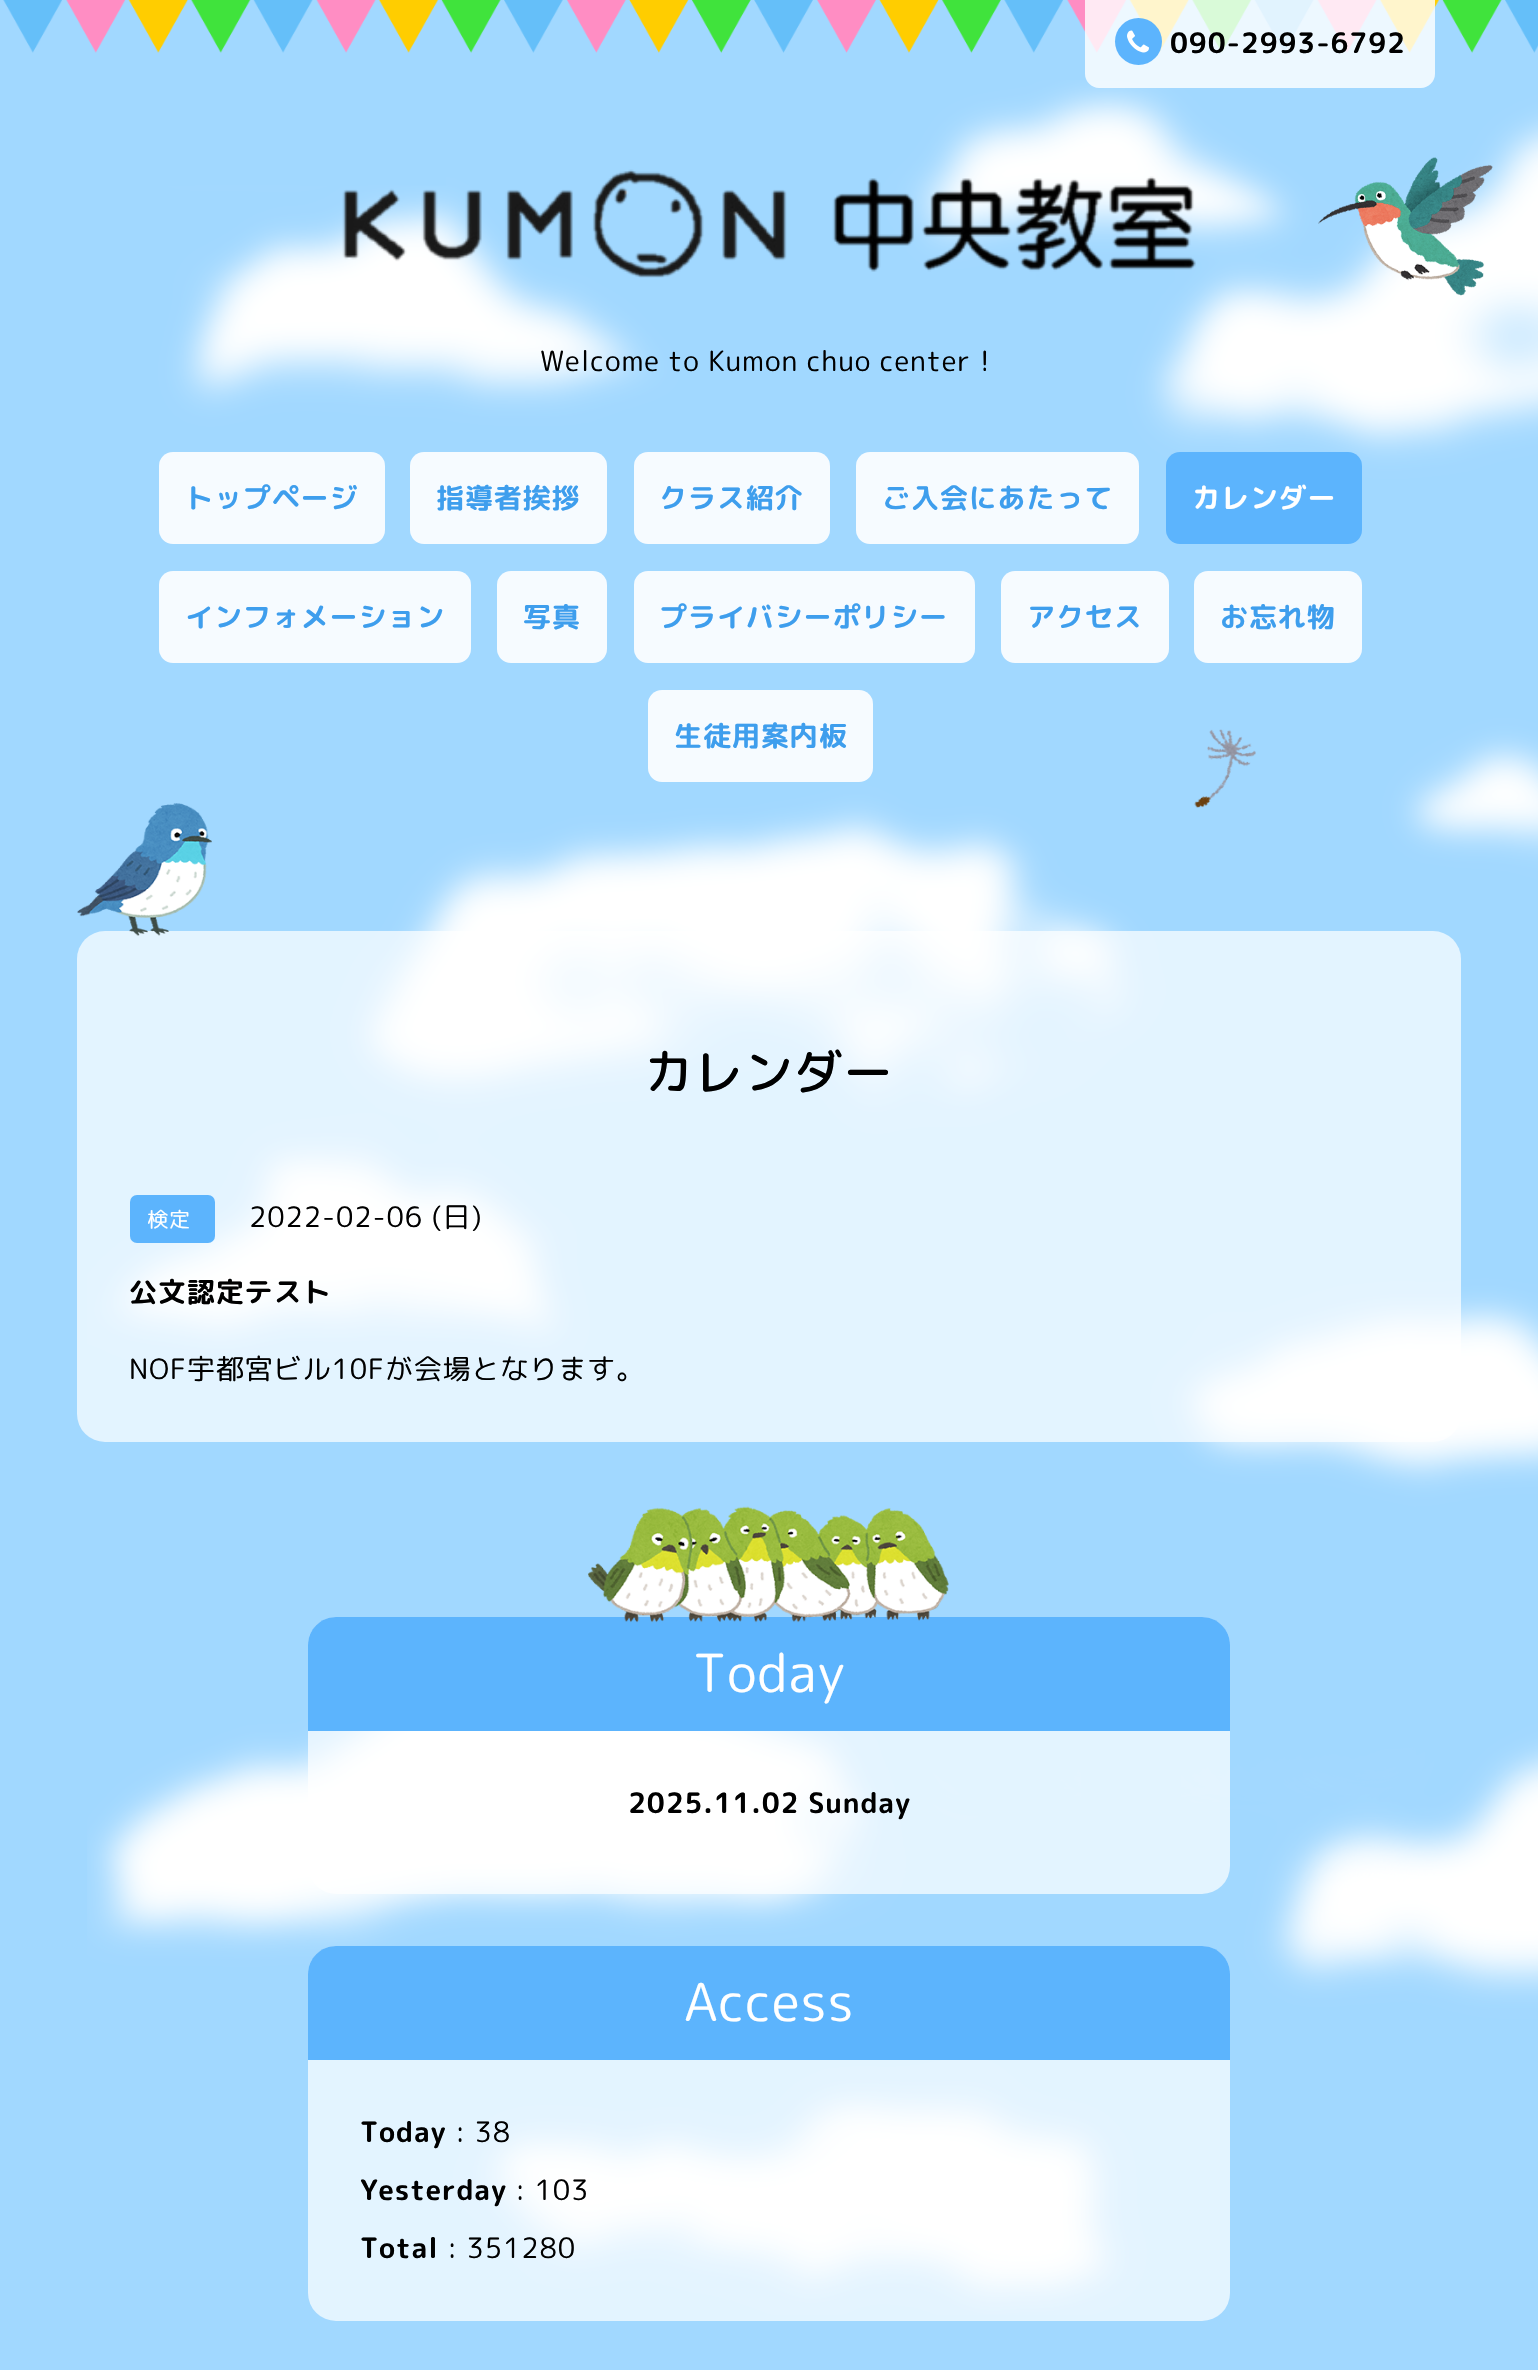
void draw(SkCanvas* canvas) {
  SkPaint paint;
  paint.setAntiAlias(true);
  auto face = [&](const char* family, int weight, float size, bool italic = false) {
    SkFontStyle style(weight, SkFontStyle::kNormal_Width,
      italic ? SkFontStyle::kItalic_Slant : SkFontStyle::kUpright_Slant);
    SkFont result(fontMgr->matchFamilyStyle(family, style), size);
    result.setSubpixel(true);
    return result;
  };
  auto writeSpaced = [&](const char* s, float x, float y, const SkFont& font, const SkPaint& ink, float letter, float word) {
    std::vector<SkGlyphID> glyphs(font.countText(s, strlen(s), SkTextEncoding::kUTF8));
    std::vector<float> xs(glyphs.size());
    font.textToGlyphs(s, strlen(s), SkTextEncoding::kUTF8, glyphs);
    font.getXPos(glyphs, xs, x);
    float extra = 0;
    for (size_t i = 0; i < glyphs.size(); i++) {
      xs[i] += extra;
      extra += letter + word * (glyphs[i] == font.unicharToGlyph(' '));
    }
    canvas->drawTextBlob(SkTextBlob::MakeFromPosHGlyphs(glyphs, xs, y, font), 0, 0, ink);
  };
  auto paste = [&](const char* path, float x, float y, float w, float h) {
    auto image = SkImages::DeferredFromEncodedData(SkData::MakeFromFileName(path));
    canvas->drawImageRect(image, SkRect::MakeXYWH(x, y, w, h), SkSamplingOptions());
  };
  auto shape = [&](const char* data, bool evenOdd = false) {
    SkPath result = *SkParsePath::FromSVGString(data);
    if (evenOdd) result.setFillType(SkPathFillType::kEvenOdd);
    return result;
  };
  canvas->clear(0xffa1d8ff);
  paste("img/1.png", 87, 80, 1451, 2235);
  paste("img/2.png", 1194, 729, 62, 79);
  paste("img/3.png", 3, 0, 1535, 53);
  paint.setColor(0xccffffff);
  canvas->drawPath(shape("M1085 0H1435V74C1435 81.5 1428.5 88 1421 88H1099C1091.5 88 1085 81.5 1085 74Z"), paint);
  paint.setColor(0xff5cb4fd);
  canvas->drawCircle(1138.5f, 41.5f, 23.5f, paint);
  paste("img/4.png", 1127, 30, 22, 23);
  paste("img/5.png", 1318, 157, 175, 139);
  paste("img/6.png", 342, 169, 854, 109);
  paint.setColor(0xfff6fbff);
  canvas->drawRoundRect(SkRect::MakeXYWH(159, 452, 226, 92), 14, 14, paint);
  canvas->drawRoundRect(SkRect::MakeXYWH(410, 452, 197, 92), 14, 14, paint);
  canvas->drawRoundRect(SkRect::MakeXYWH(634, 452, 196, 92), 14, 14, paint);
  canvas->drawRoundRect(SkRect::MakeXYWH(856, 452, 283, 92), 14, 14, paint);
  paint.setColor(0xff5cb4fd);
  canvas->drawRoundRect(SkRect::MakeXYWH(1166, 452, 196, 92), 14, 14, paint);
  paint.setColor(0xfff6fbff);
  canvas->drawRoundRect(SkRect::MakeXYWH(159, 571, 312, 92), 14, 14, paint);
  canvas->drawRoundRect(SkRect::MakeXYWH(497, 571, 110, 92), 14, 14, paint);
  canvas->drawRoundRect(SkRect::MakeXYWH(634, 571, 341, 92), 14, 14, paint);
  canvas->drawRoundRect(SkRect::MakeXYWH(1001, 571, 168, 92), 14, 14, paint);
  canvas->drawRoundRect(SkRect::MakeXYWH(1194, 571, 168, 92), 14, 14, paint);
  canvas->drawRoundRect(SkRect::MakeXYWH(648, 690, 225, 92), 14, 14, paint);
  paint.setColor(0xb3ffffff);
  canvas->drawRoundRect(SkRect::MakeXYWH(77, 931, 1384, 511), 28, 28, paint);
  paste("img/7.png", 77, 803, 135, 133);
  paint.setColor(0xff5cb4fd);
  canvas->drawRoundRect(SkRect::MakeXYWH(130, 1195, 85, 48), 7, 7, paint);
  paint.setColor(0xb3ffffff);
  canvas->drawRoundRect(SkRect::MakeXYWH(308, 1617, 922, 277), 28, 28, paint);
  paint.setColor(0xff5cb4fd);
  canvas->drawPath(shape("M336 1617H1202C1217.5 1617 1230 1629.5 1230 1645V1731H308V1645C308 1629.5 320.5 1617 336 1617Z"), paint);
  paste("img/8.png", 588, 1506, 361, 117);
  paint.setColor(0xb3ffffff);
  canvas->drawRoundRect(SkRect::MakeXYWH(308, 1946, 922, 375), 28, 28, paint);
  paint.setColor(0xff5cb4fd);
  canvas->drawPath(shape("M336 1946H1202C1217.5 1946 1230 1958.5 1230 1974V2060H308V1974C308 1958.5 320.5 1946 336 1946Z"), paint);
  auto f0 = face("Rounded Mplus 1c Bold", 700, 28);
  paint.setColor(0xff000000);
  writeSpaced("090-2993-6792", 1170, 53, f0, paint, 0.9f, 0);
  auto f1 = face("Rounded Mplus 1c", 400, 28);
  writeSpaced("Welcome to Kumon chuo center！", 540, 371, f1, paint, 0.9f, 0);
  paint.setColor(0xff3e9eed);
  {
    const struct { const char* s; float x, y; } items[] = {
      {"トップページ", 185, 508},
      {"指導者挨拶", 436, 508},
      {"クラス紹介", 659, 508},
      {"ご入会にあたって", 882, 508},
    };
    for (auto [s, x, y] : items) {
      writeSpaced(s, x, y, f0, paint, 0.9f, 0);
    }
  }
  paint.setColor(0xffffffff);
  writeSpaced("カレンダー", 1192, 508, f0, paint, 0.9f, 0);
  paint.setColor(0xff3e9eed);
  {
    const struct { const char* s; float x, y; } items[] = {
      {"インフォメーション", 185, 627},
      {"写真", 523, 627},
      {"プライバシーポリシー", 659, 627},
      {"アクセス", 1027, 627},
      {"お忘れ物", 1220, 627},
      {"生徒用案内板", 674, 746},
    };
    for (auto [s, x, y] : items) {
      writeSpaced(s, x, y, f0, paint, 0.9f, 0);
    }
  }
  auto f2 = face("Rounded Mplus 1c", 500, 49);
  paint.setColor(0xff000000);
  writeSpaced("カレンダー", 644, 1090, f2, paint, 0.9f, 0);
  auto f3 = face("Rounded Mplus 1c", 400, 21);
  paint.setColor(0xffffffff);
  writeSpaced("検定", 147, 1227, f3, paint, 0.9f, 0);
  paint.setColor(0xff000000);
  writeSpaced("2022-02-06 (日)", 249, 1227, f1, paint, 0.9f, 0);
  writeSpaced("公文認定テスト", 129, 1302, f0, paint, 0.9f, 0);
  writeSpaced("NOF宇都宮ビル10Fが会場となります。", 129, 1379, f1, paint, 0.9f, 0);
  auto f4 = face("Rounded Mplus 1c", 400, 52.5f);
  paint.setColor(0xffffffff);
  writeSpaced("Today", 693, 1692, f4, paint, 0.9f, 0);
  paint.setColor(0xff000000);
  writeSpaced("2025.11.02 Sunday", 628, 1813, f0, paint, 0.9f, 0);
  paint.setColor(0xffffffff);
  writeSpaced("Access", 684, 2021, f4, paint, 0.9f, 0);
  paint.setColor(0xff000000);
  writeSpaced("Today", 360, 2142, f0, paint, 0.9f, 0);
  writeSpaced(": 38", 455, 2142, f1, paint, 0.9f, 0);
  writeSpaced("Yesterday", 360, 2200, f0, paint, 0.9f, 0);
  writeSpaced(": 103", 515, 2200, f1, paint, 0.9f, 0);
  writeSpaced("Total", 360, 2258, f0, paint, 0.9f, 0);
  writeSpaced(": 351280", 447, 2258, f1, paint, 0.9f, 0);
}
